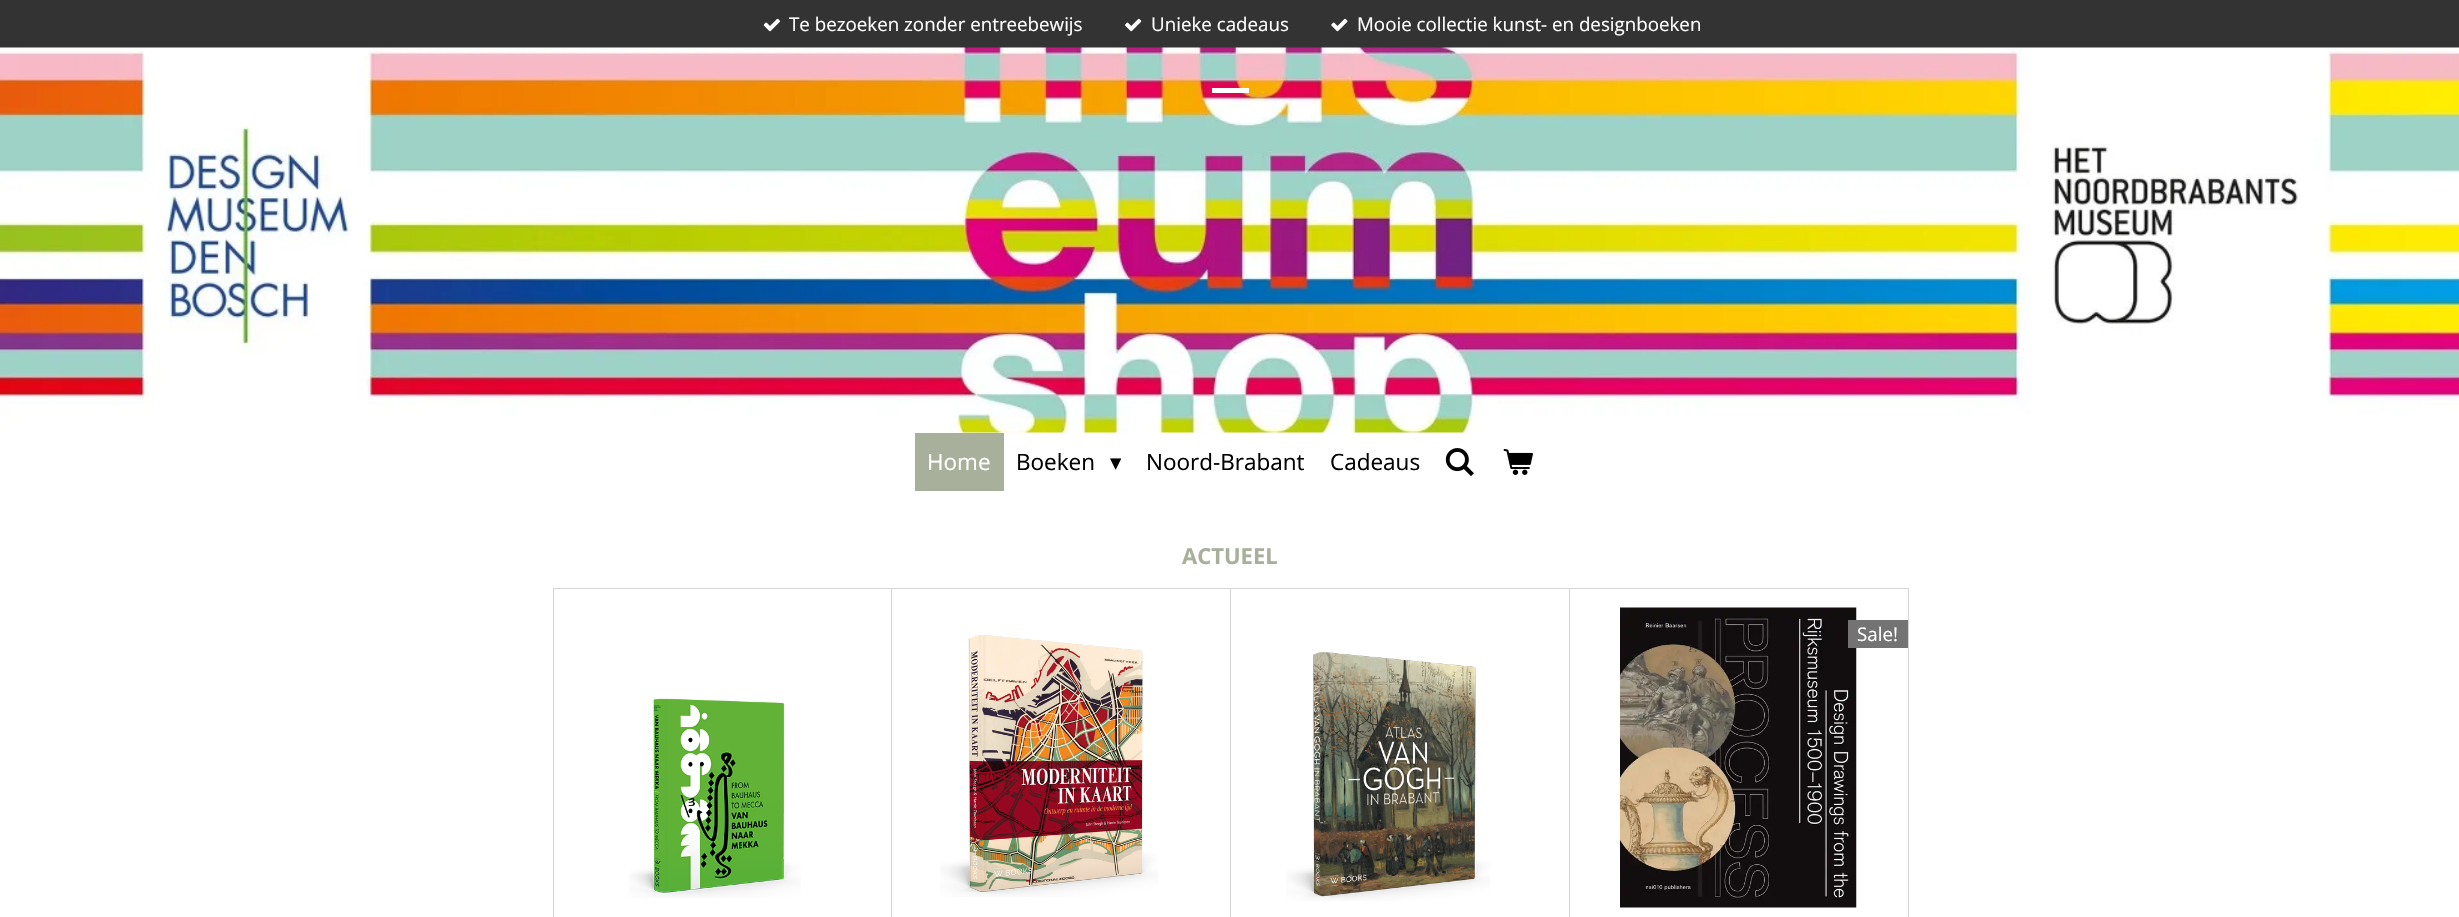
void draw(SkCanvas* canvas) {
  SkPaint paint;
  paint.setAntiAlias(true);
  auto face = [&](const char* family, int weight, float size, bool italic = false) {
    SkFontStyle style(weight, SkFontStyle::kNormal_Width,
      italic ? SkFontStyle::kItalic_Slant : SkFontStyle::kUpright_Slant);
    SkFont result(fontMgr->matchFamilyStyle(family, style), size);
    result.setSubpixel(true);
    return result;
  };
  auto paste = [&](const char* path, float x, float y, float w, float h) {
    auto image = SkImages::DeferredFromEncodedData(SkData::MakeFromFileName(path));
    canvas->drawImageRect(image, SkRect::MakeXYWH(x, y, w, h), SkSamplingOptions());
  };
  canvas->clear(0xffffffff);
  paint.setColor(0xff333333);
  canvas->drawRect(SkRect::MakeXYWH(0, 0, 2459, 48), paint);
  paste("img/1.png", 763, 18, 17, 14);
  paste("img/2.png", 1125, 18, 17, 14);
  paste("img/3.png", 1331, 18, 17, 14);
  paste("img/4.png", 0, 47, 2459, 386);
  paint.setColor(0xfffefefe);
  canvas->drawRect(SkRect::MakeXYWH(1212, 88, 37, 5), paint);
  paint.setColor(0xffa8af9b);
  canvas->drawRect(SkRect::MakeXYWH(915, 433, 89, 58), paint);
  paste("img/5.png", 1445, 448, 29, 28);
  paste("img/6.png", 1503, 448, 30, 27);
  paint.setStroke(true);
  paint.setStrokeWidth(1);
  paint.setColor(0xffd5d5d5);
  canvas->drawRect(SkRect::MakeXYWH(553.5f, 588.5f, 339, 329), paint);
  paste("img/7.png", 629, 698, 172, 200);
  paint.setStroke(false);
  paint.setColor(0xffffffff);
  canvas->drawRect(SkRect::MakeXYWH(892, 589, 1, 328), paint);
  paint.setStroke(true);
  paint.setColor(0xffd5d5d5);
  canvas->drawRect(SkRect::MakeXYWH(891.5f, 588.5f, 339, 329), paint);
  paste("img/8.png", 940, 635, 218, 262);
  canvas->drawRect(SkRect::MakeXYWH(1230.5f, 588.5f, 339, 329), paint);
  paste("img/9.png", 1286, 652, 204, 249);
  canvas->drawRect(SkRect::MakeXYWH(1569.5f, 588.5f, 339, 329), paint);
  paste("img/10.png", 1620, 607, 237, 301);
  paint.setStroke(false);
  paint.setColor(0xff737373);
  canvas->drawRect(SkRect::MakeXYWH(1848, 620, 60, 28), paint);
  auto f0 = face("Open Sans", 400, 18.75f);
  paint.setColor(0xffffffff);
  {
    const struct { const char* s; float x, y; } items[] = {
      {"Te bezoeken zonder entreebewijs", 789, 31},
      {"Unieke cadeaus", 1151, 31},
      {"Mooie collectie kunst- en designboeken", 1357, 31},
    };
    for (auto [s, x, y] : items) {
      canvas->drawString(s, x, y, f0, paint);
    }
  }
  auto f1 = face("Open Sans", 400, 22.5f);
  canvas->drawString("Home", 927, 470, f1, paint);
  paint.setColor(0xff000000);
  canvas->drawString("Boeken", 1016, 470, f1, paint);
  auto f2 = face("DejaVu Sans", 400, 22.5f);
  canvas->drawString("▾", 1110, 470, f2, paint);
  canvas->drawString("Noord-Brabant", 1146, 470, f1, paint);
  canvas->drawString("Cadeaus", 1330, 470, f1, paint);
  auto f3 = face("Open Sans", 700, 22);
  paint.setColor(0xffa8af9b);
  canvas->drawString("ACTUEEL", 1182, 564, f3, paint);
  paint.setColor(0xffffffff);
  canvas->drawString("Sale!", 1857, 641, f0, paint);
}
